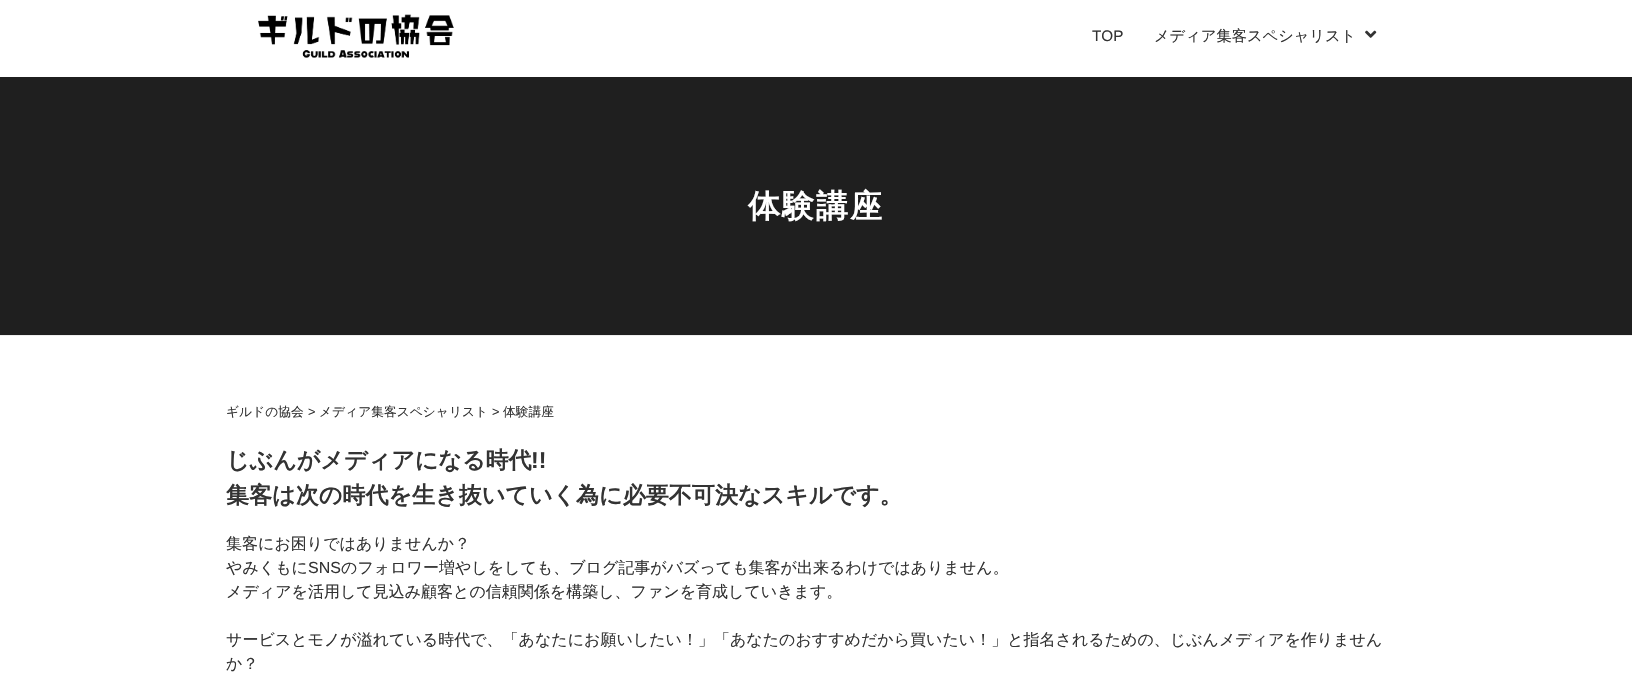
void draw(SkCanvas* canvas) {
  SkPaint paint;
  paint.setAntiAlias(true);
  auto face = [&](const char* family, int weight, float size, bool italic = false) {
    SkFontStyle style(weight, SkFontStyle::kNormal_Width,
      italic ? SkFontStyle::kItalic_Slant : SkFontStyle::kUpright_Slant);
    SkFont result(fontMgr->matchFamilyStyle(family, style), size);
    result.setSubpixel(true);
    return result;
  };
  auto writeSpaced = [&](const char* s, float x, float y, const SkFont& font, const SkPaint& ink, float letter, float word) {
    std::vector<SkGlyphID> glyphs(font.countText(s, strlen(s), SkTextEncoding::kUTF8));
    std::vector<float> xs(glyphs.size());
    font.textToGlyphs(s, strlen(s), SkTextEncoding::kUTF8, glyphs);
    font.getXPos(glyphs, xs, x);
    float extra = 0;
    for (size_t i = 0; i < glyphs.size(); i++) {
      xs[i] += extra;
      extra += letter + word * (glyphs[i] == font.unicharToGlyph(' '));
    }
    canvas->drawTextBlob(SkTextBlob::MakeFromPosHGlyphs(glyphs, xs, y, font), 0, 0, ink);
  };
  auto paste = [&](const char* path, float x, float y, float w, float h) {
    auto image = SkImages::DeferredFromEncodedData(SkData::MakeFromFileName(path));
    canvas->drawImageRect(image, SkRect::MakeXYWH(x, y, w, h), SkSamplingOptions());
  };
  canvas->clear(0xffffffff);
  paint.setColor(0xffeeeeee);
  canvas->drawRect(SkRect::MakeXYWH(0, 335, 1632, 1), paint);
  paste("img/1.png", 258, 14, 196, 44);
  paste("img/2.png", 1365, 30, 12, 8);
  paint.setColor(0xff1f1f1f);
  canvas->drawRect(SkRect::MakeXYWH(0, 77, 1632, 258), paint);
  auto f0 = face("Liberation Sans", 400, 15.25f);
  paint.setColor(0xff333333);
  canvas->drawString("TOP", 1092, 41, f0, paint);
  auto f1 = face("WenQuanYi Zen Hei", 500, 15.25f);
  canvas->drawString("メディア集客スペシャリスト", 1154, 41, f1, paint);
  auto f2 = face("WenQuanYi Zen Hei", 700, 32);
  paint.setColor(0xffffffff);
  writeSpaced("体験講座", 748, 217, f2, paint, 2, 0);
  auto f3 = face("WenQuanYi Zen Hei", 500, 12.75f);
  paint.setColor(0xff333333);
  canvas->drawString("ギルドの協会", 226, 416, f3, paint);
  auto f4 = face("Liberation Sans", 400, 12.75f);
  canvas->drawString(">", 308, 416, f4, paint);
  canvas->drawString("メディア集客スペシャリスト", 319, 416, f3, paint);
  canvas->drawString(">", 492, 416, f4, paint);
  canvas->drawString("体験講座", 503, 416, f3, paint);
  auto f5 = face("WenQuanYi Zen Hei", 700, 23.05f);
  canvas->drawString("じぶんがメディアになる時代", 226, 468, f5, paint);
  auto f6 = face("Liberation Sans", 700, 23.05f);
  canvas->drawString("!!", 531, 468, f6, paint);
  canvas->drawString("集客は次の時代を生き抜いていく為に必要不可決なスキルです。", 226, 503, f5, paint);
  auto f7 = face("WenQuanYi Zen Hei", 500, 16);
  canvas->drawString("集客にお困りではありませんか？", 226, 549, f7, paint);
  canvas->drawString("やみくもに", 226, 573, f7, paint);
  auto f8 = face("Liberation Sans", 400, 16);
  canvas->drawString("SNS", 308, 573, f8, paint);
  {
    const struct { const char* s; float x, y; } items[] = {
      {"のフォロワー増やしをしても、ブログ記事がバズっても集客が出来るわけではありません。", 341, 573},
      {"メディアを活用して見込み顧客との信頼関係を構築し、ファンを育成していきます。", 226, 597},
      {"サービスとモノが溢れている時代で、「あなたにお願いしたい！」「あなたのおすすめだから買いたい！」と指名されるための、じぶんメディアを作りません", 226, 645},
      {"か？", 226, 669},
    };
    for (auto [s, x, y] : items) {
      canvas->drawString(s, x, y, f7, paint);
    }
  }
}
